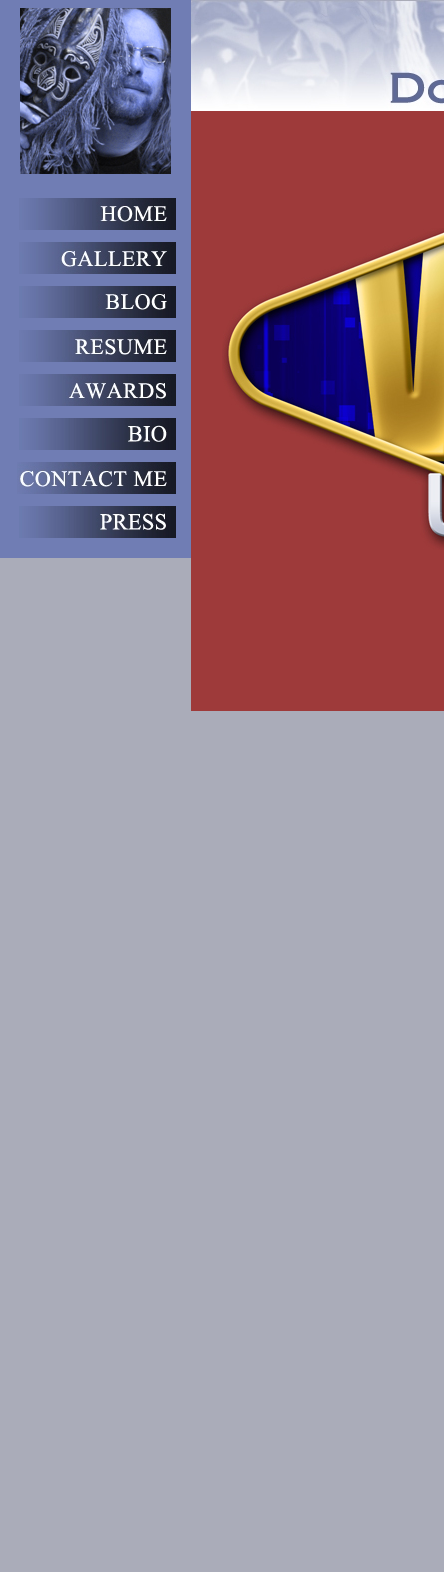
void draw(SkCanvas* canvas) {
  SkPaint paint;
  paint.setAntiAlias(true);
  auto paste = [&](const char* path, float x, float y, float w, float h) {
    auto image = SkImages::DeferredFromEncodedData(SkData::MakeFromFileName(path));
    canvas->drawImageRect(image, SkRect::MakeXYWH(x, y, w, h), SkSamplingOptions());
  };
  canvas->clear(0xffaaacb9);
  paint.setColor(0xff707db4);
  canvas->drawRect(SkRect::MakeXYWH(0, 0, 191, 558), paint);
  paste("img/1.png", 20, 8, 151, 166);
  paste("img/2.png", 19, 198, 157, 32);
  paste("img/3.png", 19, 242, 157, 32);
  paste("img/4.png", 19, 286, 157, 32);
  paste("img/5.png", 19, 330, 157, 32);
  paste("img/6.png", 19, 374, 157, 32);
  paste("img/7.png", 19, 418, 157, 32);
  paste("img/8.png", 17, 462, 159, 32);
  paste("img/9.png", 19, 506, 157, 32);
  paste("img/10.png", 191, 0, 253, 111);
  paint.setColor(0xff9e3a3a);
  canvas->drawRect(SkRect::MakeXYWH(191, 111, 253, 600), paint);
  paste("img/11.png", 222, 228, 222, 322);
}
